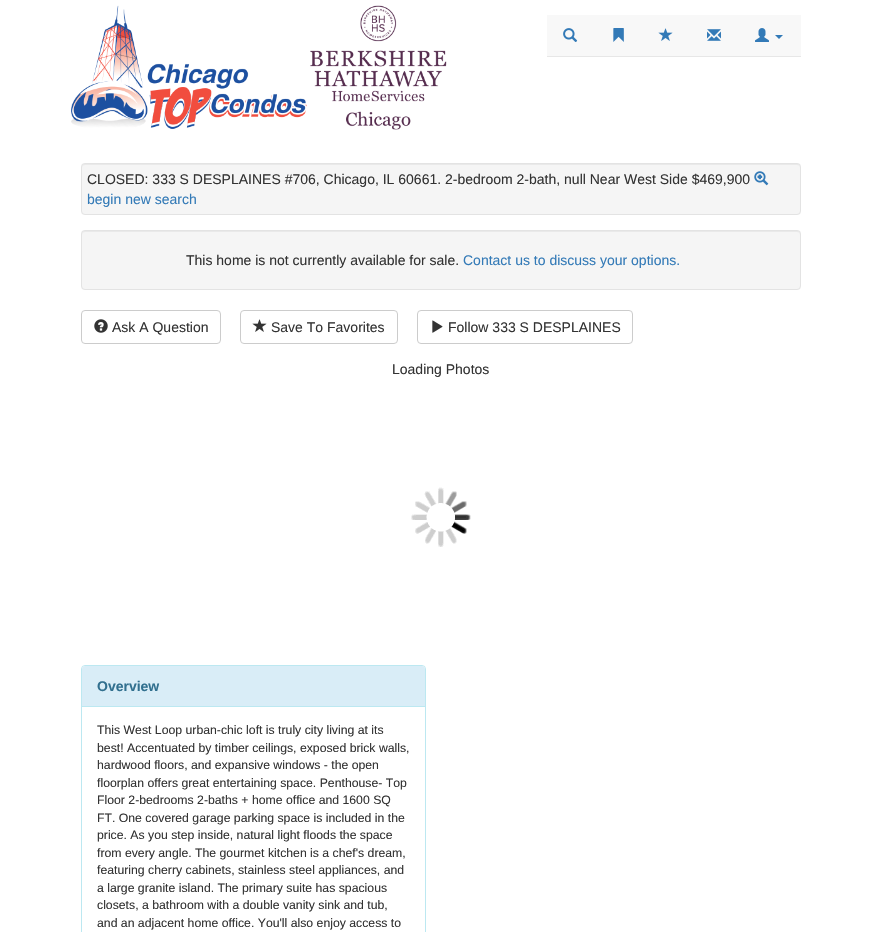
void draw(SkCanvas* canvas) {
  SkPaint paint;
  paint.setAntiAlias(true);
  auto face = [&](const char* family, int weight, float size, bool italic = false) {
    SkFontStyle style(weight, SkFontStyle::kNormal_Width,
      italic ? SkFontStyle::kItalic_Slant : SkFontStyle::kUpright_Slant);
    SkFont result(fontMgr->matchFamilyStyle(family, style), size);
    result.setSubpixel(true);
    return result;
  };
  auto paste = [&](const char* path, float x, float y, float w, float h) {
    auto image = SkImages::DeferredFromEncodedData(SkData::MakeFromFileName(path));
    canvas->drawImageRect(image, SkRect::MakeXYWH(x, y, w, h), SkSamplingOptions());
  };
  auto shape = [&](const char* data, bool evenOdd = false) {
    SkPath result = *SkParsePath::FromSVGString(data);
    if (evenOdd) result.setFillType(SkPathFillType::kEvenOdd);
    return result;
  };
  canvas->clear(0xffffffff);
  paste("img/1.png", 71, 5, 376, 125);
  paint.setColor(0xfff8f8f8);
  canvas->drawRect(SkRect::MakeXYWH(547, 15, 254, 41), paint);
  paint.setColor(0xffe7e7e7);
  canvas->drawRect(SkRect::MakeXYWH(547, 56, 254, 1), paint);
  paste("img/2.png", 563, 28, 15, 14);
  paste("img/3.png", 613, 28, 11, 14);
  paste("img/4.png", 658, 28, 15, 13);
  paste("img/5.png", 707, 29, 14, 12);
  paste("img/6.png", 755, 28, 14, 14);
  paint.setColor(0xff337ab7);
  canvas->drawPath(shape("M775 35H783L779 39Z"), paint);
  paint.setColor(0xfff5f5f5);
  canvas->drawRoundRect(SkRect::MakeXYWH(81, 163, 720, 52), 4, 4, paint);
  paint.setColor(0xffe9e9e9);
  canvas->drawPath(shape("M85 165H797C799 165 800 166 800 168C800 166 799 164 797 164H85C83 164 82 166 82 168C82 166 83 165 85 165Z"), paint);
  paint.setStroke(true);
  paint.setStrokeWidth(1);
  paint.setColor(0xffe3e3e3);
  canvas->drawRoundRect(SkRect::MakeXYWH(81.5f, 163.5f, 719, 51), 3.5f, 3.5f, paint);
  paste("img/7.png", 754, 171, 15, 15);
  paint.setStroke(false);
  paint.setColor(0xfff5f5f5);
  canvas->drawRoundRect(SkRect::MakeXYWH(81, 230, 720, 60), 4, 4, paint);
  paint.setColor(0xffe9e9e9);
  canvas->drawPath(shape("M85 232H797C799 232 800 233 800 235C800 233 799 231 797 231H85C83 231 82 233 82 235C82 233 83 232 85 232Z"), paint);
  paint.setStroke(true);
  paint.setColor(0xffe3e3e3);
  canvas->drawRoundRect(SkRect::MakeXYWH(81.5f, 230.5f, 719, 59), 3.5f, 3.5f, paint);
  paint.setColor(0xffcccccc);
  canvas->drawRoundRect(SkRect::MakeXYWH(81.5f, 310.5f, 139, 33), 3.5f, 3.5f, paint);
  paste("img/8.png", 94, 319, 14, 14);
  canvas->drawRoundRect(SkRect::MakeXYWH(240.5f, 310.5f, 157, 33), 3.5f, 3.5f, paint);
  paste("img/9.png", 252, 319, 15, 13);
  canvas->drawRoundRect(SkRect::MakeXYWH(417.5f, 310.5f, 215, 33), 3.5f, 3.5f, paint);
  paste("img/10.png", 432, 320, 11, 13);
  paste("img/11.png", 411, 487, 60, 60);
  paint.setColor(0xffbce8f1);
  canvas->drawRoundRect(SkRect::MakeXYWH(81.5f, 665.5f, 344, 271), 3.5f, 3.5f, paint);
  paint.setStroke(false);
  paint.setColor(0xffd9edf7);
  canvas->drawPath(shape("M85 666H422C423.5 666 425 667.5 425 669V707H82V669C82 667.5 83.5 666 85 666Z"), paint);
  paint.setColor(0xffbce8f1);
  canvas->drawRect(SkRect::MakeXYWH(82, 706, 343, 1), paint);
  auto f0 = face("Liberation Sans", 400, 14);
  paint.setColor(0xff333333);
  canvas->drawString("CLOSED: 333 S DESPLAINES #706, Chicago, IL 60661. 2-bedroom 2-bath, null Near West Side $469,900", 87, 184, f0, paint);
  paint.setColor(0xff337ab7);
  canvas->drawString("begin new search", 87, 204, f0, paint);
  paint.setColor(0xff333333);
  canvas->drawString("This home is not currently available for sale.", 186, 265, f0, paint);
  paint.setColor(0xff337ab7);
  canvas->drawString("Contact us to discuss your options.", 463, 265, f0, paint);
  paint.setColor(0xff333333);
  {
    const struct { const char* s; float x, y; } items[] = {
      {"Ask A Question", 112, 332},
      {"Save To Favorites", 271, 332},
      {"Follow 333 S DESPLAINES", 448, 332},
      {"Loading Photos", 392, 374},
    };
    for (auto [s, x, y] : items) {
      canvas->drawString(s, x, y, f0, paint);
    }
  }
  auto f1 = face("Liberation Sans", 700, 14);
  paint.setColor(0xff31708f);
  canvas->drawString("Overview", 97, 691, f1, paint);
  auto f2 = face("Liberation Sans", 400, 12.25f);
  paint.setColor(0xff333333);
  {
    const struct { const char* s; float x, y; } items[] = {
      {"This West Loop urban-chic loft is truly city living at its", 97, 734},
      {"best! Accentuated by timber ceilings, exposed brick walls,", 97, 752},
      {"hardwood floors, and expansive windows - the open", 97, 769},
      {"floorplan offers great entertaining space. Penthouse- Top", 97, 787},
      {"Floor 2-bedrooms 2-baths + home office and 1600 SQ", 97, 804},
      {"FT. One covered garage parking space is included in the", 97, 822},
      {"price. As you step inside, natural light floods the space", 97, 839},
      {"from every angle. The gourmet kitchen is a chef's dream,", 97, 857},
      {"featuring cherry cabinets, stainless steel appliances, and", 97, 874},
      {"a large granite island. The primary suite has spacious", 97, 892},
      {"closets, a bathroom with a double vanity sink and tub,", 97, 909},
      {"and an adjacent home office. You'll also enjoy access to", 97, 927},
    };
    for (auto [s, x, y] : items) {
      canvas->drawString(s, x, y, f2, paint);
    }
  }
}
